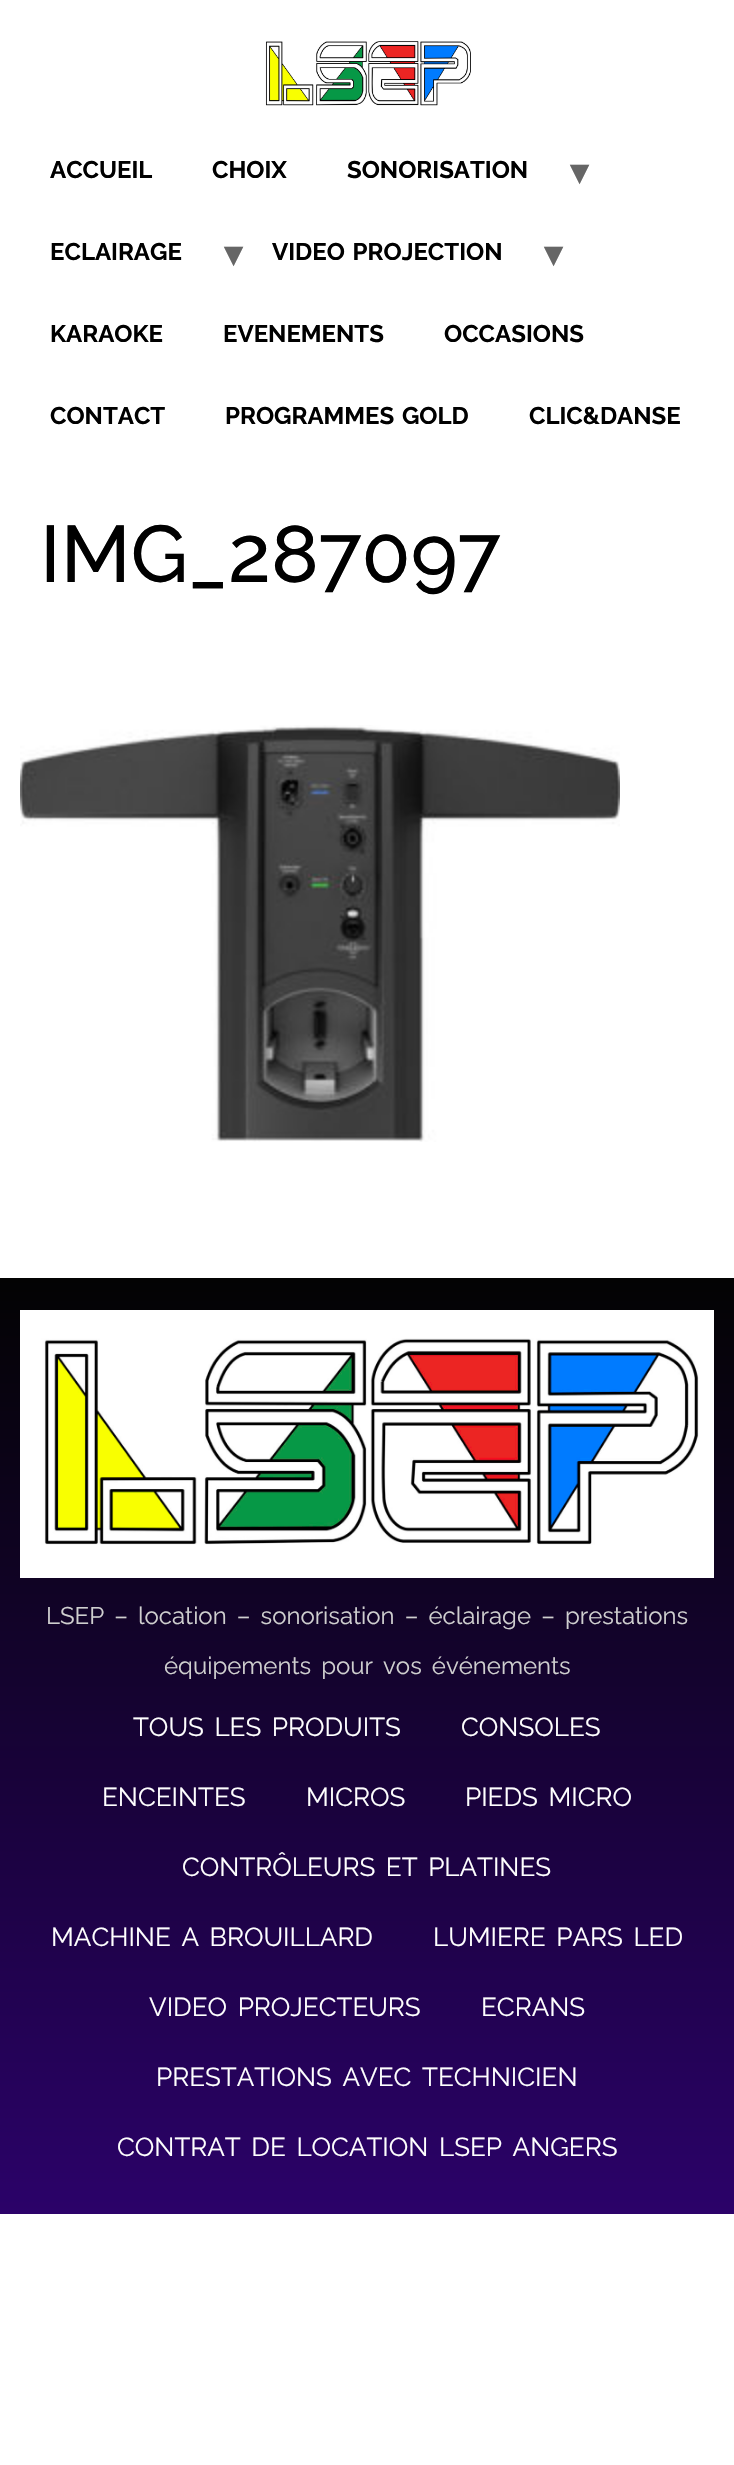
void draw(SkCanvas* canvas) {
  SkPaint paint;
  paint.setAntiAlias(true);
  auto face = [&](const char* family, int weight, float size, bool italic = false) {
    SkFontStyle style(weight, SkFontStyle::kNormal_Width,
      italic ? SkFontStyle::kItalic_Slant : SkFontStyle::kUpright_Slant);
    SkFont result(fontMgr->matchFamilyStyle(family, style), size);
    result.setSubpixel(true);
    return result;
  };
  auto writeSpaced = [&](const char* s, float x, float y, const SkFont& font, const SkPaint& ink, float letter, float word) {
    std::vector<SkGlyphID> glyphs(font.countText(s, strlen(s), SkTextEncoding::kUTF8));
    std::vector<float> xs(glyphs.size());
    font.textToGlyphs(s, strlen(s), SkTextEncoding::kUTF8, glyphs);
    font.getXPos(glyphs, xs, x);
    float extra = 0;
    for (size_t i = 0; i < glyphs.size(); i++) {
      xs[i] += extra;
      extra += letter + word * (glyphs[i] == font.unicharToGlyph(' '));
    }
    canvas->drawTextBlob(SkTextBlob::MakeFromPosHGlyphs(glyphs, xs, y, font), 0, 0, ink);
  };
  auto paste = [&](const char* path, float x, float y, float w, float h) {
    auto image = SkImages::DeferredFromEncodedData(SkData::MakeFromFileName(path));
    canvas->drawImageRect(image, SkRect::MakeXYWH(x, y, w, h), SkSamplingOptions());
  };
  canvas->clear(0xffffffff);
  paste("img/1.png", 265, 41, 206, 65);
  paste("img/2.png", 20, 725, 600, 417);
  {
    const SkColor colors[] = {0xff030303, 0xff2b0269};
    const float stops[] = {0, 1};
    const SkPoint ends[] = {{367, 1278}, {367, 2214}};
    paint.setShader(SkGradientShader::MakeLinear(ends, colors, stops, 2, SkTileMode::kClamp));
    paint.setAlpha(255);
  }
  canvas->drawRect(SkRect::MakeXYWH(0, 1278, 734, 936), paint);
  paste("img/3.png", 20, 1310, 694, 268);
  auto f0 = face("Raleway", 700, 24);
  paint.setShader(nullptr);
  paint.setColor(0xff000000);
  {
    const struct { const char* s; float x, y; } items[] = {
      {"ACCUEIL", 50, 178},
      {"CHOIX", 212, 178},
      {"SONORISATION", 347, 178},
    };
    for (auto [s, x, y] : items) {
      canvas->drawString(s, x, y, f0, paint);
    }
  }
  auto f1 = face("DejaVu Sans", 700, 36);
  paint.setColor(0xff666666);
  canvas->drawString("▾", 570, 184, f1, paint);
  paint.setColor(0xff000000);
  canvas->drawString("ECLAIRAGE", 50, 260, f0, paint);
  paint.setColor(0xff666666);
  canvas->drawString("▾", 224, 266, f1, paint);
  paint.setColor(0xff000000);
  writeSpaced("VIDEO PROJECTION", 272, 260, f0, paint, 0, 2);
  paint.setColor(0xff666666);
  canvas->drawString("▾", 544, 266, f1, paint);
  paint.setColor(0xff000000);
  {
    const struct { const char* s; float x, y; } items[] = {
      {"KARAOKE", 50, 342},
      {"EVENEMENTS", 223, 342},
      {"OCCASIONS", 444, 342},
      {"CONTACT", 50, 424},
    };
    for (auto [s, x, y] : items) {
      canvas->drawString(s, x, y, f0, paint);
    }
  }
  writeSpaced("PROGRAMMES GOLD", 225, 424, f0, paint, 0, 2);
  canvas->drawString("CLIC&DANSE", 529, 424, f0, paint);
  auto f2 = face("Raleway", 500, 80);
  canvas->drawString("IMG_287097", 40, 582, f2, paint);
  auto f3 = face("Raleway", 400, 24);
  paint.setColor(0xffcfcfcf);
  writeSpaced("LSEP – location – sonorisation – éclairage – prestations", 46, 1624, f3, paint, 0, 4);
  writeSpaced("équipements pour vos événements", 164, 1674, f3, paint, 0, 4);
  auto f4 = face("Raleway", 400, 26);
  paint.setColor(0xffffffff);
  writeSpaced("TOUS LES PRODUITS", 133, 1736, f4, paint, 0, 4);
  {
    const struct { const char* s; float x, y; } items[] = {
      {"CONSOLES", 461, 1736},
      {"ENCEINTES", 102, 1806},
      {"MICROS", 306, 1806},
    };
    for (auto [s, x, y] : items) {
      canvas->drawString(s, x, y, f4, paint);
    }
  }
  {
    const struct { const char* s; float x, y; } items[] = {
      {"PIEDS MICRO", 465, 1806},
      {"CONTRÔLEURS ET PLATINES", 182, 1876},
      {"MACHINE A BROUILLARD", 51, 1946},
      {"LUMIERE PARS LED", 433, 1946},
      {"VIDEO PROJECTEURS", 149, 2016},
    };
    for (auto [s, x, y] : items) {
      writeSpaced(s, x, y, f4, paint, 0, 4);
    }
  }
  canvas->drawString("ECRANS", 481, 2016, f4, paint);
  writeSpaced("PRESTATIONS AVEC TECHNICIEN", 156, 2086, f4, paint, 0, 4);
  writeSpaced("CONTRAT DE LOCATION LSEP ANGERS", 117, 2156, f4, paint, 0, 4);
}
